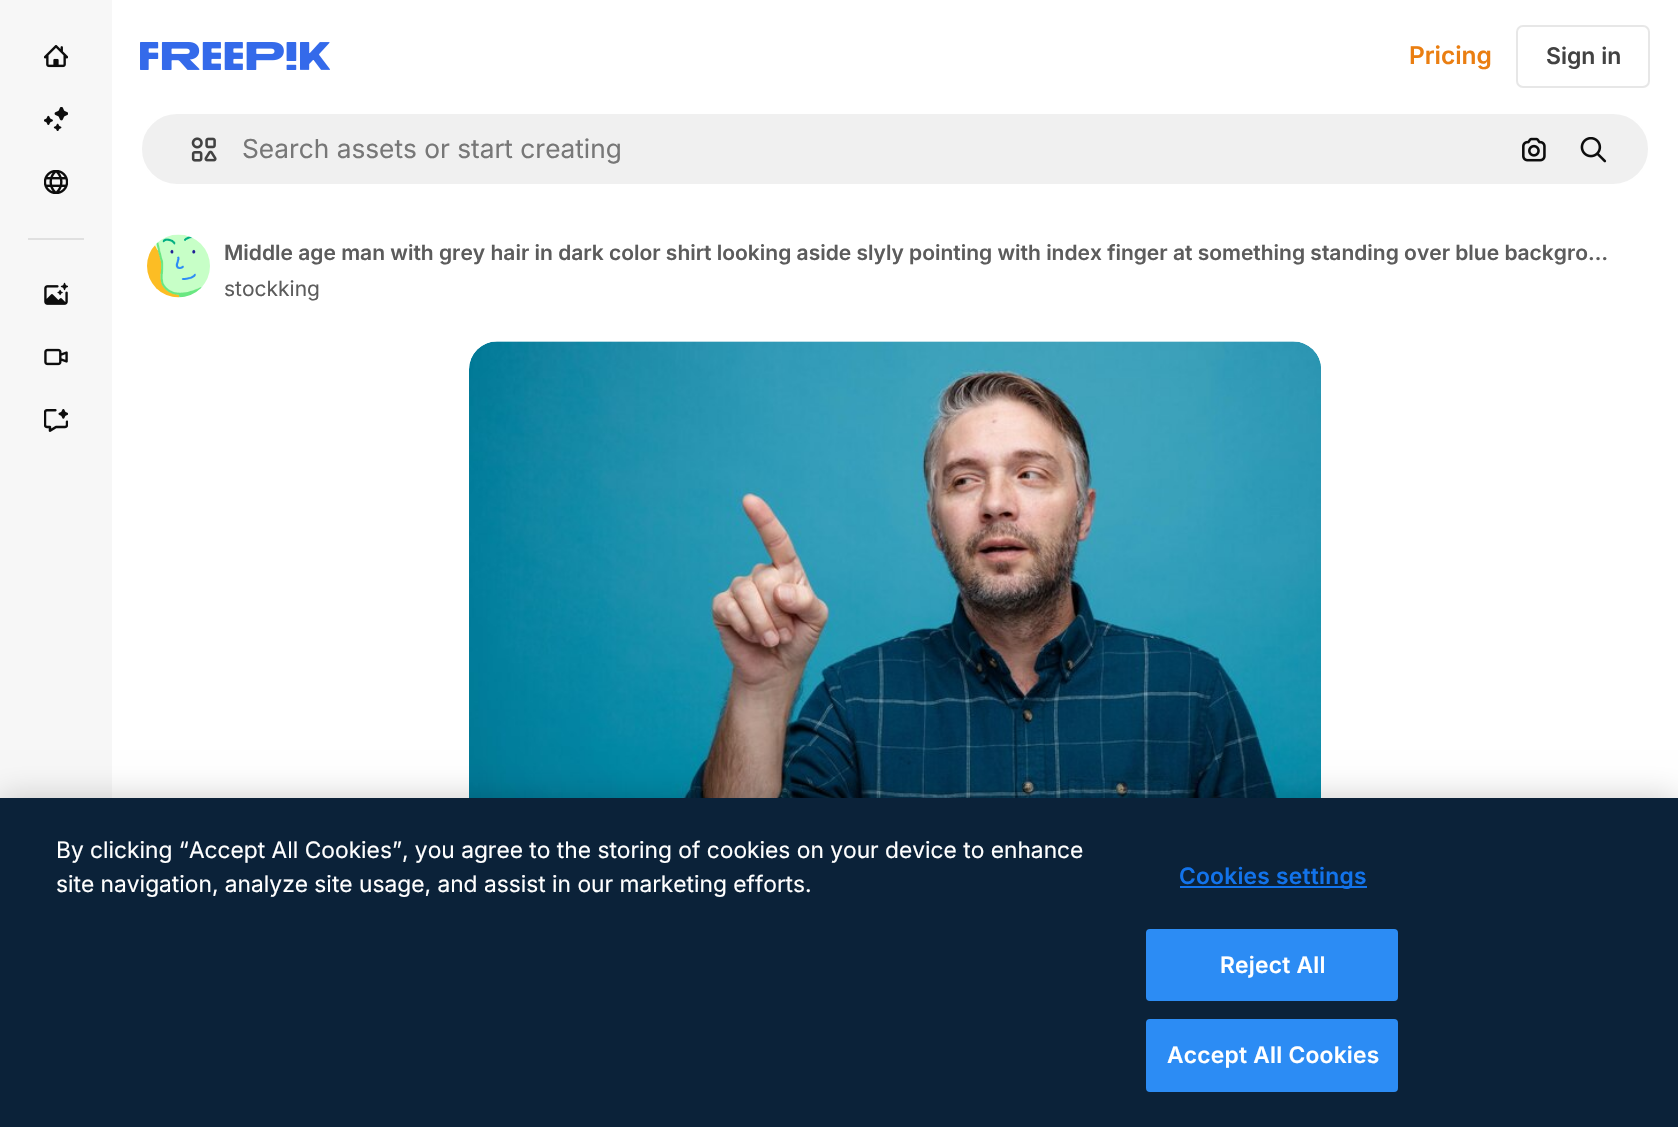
void draw(SkCanvas* canvas) {
  SkPaint paint;
  paint.setAntiAlias(true);
  auto face = [&](const char* family, int weight, float size, bool italic = false) {
    SkFontStyle style(weight, SkFontStyle::kNormal_Width,
      italic ? SkFontStyle::kItalic_Slant : SkFontStyle::kUpright_Slant);
    SkFont result(fontMgr->matchFamilyStyle(family, style), size);
    result.setSubpixel(true);
    return result;
  };
  auto writeSpaced = [&](const char* s, float x, float y, const SkFont& font, const SkPaint& ink, float letter, float word) {
    std::vector<SkGlyphID> glyphs(font.countText(s, strlen(s), SkTextEncoding::kUTF8));
    std::vector<float> xs(glyphs.size());
    font.textToGlyphs(s, strlen(s), SkTextEncoding::kUTF8, glyphs);
    font.getXPos(glyphs, xs, x);
    float extra = 0;
    for (size_t i = 0; i < glyphs.size(); i++) {
      xs[i] += extra;
      extra += letter + word * (glyphs[i] == font.unicharToGlyph(' '));
    }
    canvas->drawTextBlob(SkTextBlob::MakeFromPosHGlyphs(glyphs, xs, y, font), 0, 0, ink);
  };
  auto paste = [&](const char* path, float x, float y, float w, float h) {
    auto image = SkImages::DeferredFromEncodedData(SkData::MakeFromFileName(path));
    canvas->drawImageRect(image, SkRect::MakeXYWH(x, y, w, h), SkSamplingOptions());
  };
  canvas->clear(0xffffffff);
  paint.setColor(0xfff7f7f7);
  canvas->drawRect(SkRect::MakeXYWH(0, 0, 112, 798), paint);
  paste("img/1.png", 44, 45, 24, 23);
  paste("img/2.png", 44, 107, 24, 24);
  paste("img/3.png", 44, 170, 24, 24);
  paint.setColor(0xffe0e0e0);
  canvas->drawRect(SkRect::MakeXYWH(28, 238, 56, 2), paint);
  paste("img/4.png", 44, 282, 24, 23);
  paste("img/5.png", 44, 348, 24, 18);
  paste("img/6.png", 44, 409, 24, 23);
  paste("img/7.png", 140, 42, 190, 28);
  paint.setStroke(true);
  paint.setStrokeWidth(2);
  paint.setColor(0xffe7e7e7);
  canvas->drawRoundRect(SkRect::MakeXYWH(1517, 26, 132, 61), 6, 6, paint);
  paint.setStroke(false);
  paint.setColor(0xfff0f0f0);
  canvas->drawRoundRect(SkRect::MakeXYWH(141, 113, 1508, 72), 36, 36, paint);
  paint.setStroke(true);
  paint.setColor(0xffffffff);
  canvas->drawRoundRect(SkRect::MakeXYWH(141, 113, 1508, 72), 36, 36, paint);
  paste("img/8.png", 191, 137, 26, 25);
  paste("img/9.png", 1522, 137, 24, 25);
  paste("img/10.png", 1580, 137, 27, 26);
  paste("img/11.png", 147, 234, 63, 64);
  paste("img/12.png", 469, 341, 852, 457);
  paint.setStroke(false);
  paint.setColor(0x33000000);
  paint.setMaskFilter(SkMaskFilter::MakeBlur(kNormal_SkBlurStyle, 16));
  canvas->drawRect(SkRect::MakeXYWH(0, 798, 1678, 329), paint);
  paint.setMaskFilter(nullptr);
  paint.setColor(0xff0b2239);
  canvas->drawRect(SkRect::MakeXYWH(0, 798, 1678, 329), paint);
  paint.setColor(0xff1273eb);
  canvas->drawRect(SkRect::MakeXYWH(1180, 886, 187, 2), paint);
  paint.setColor(0xff2c8cf4);
  canvas->drawRoundRect(SkRect::MakeXYWH(1147, 930, 250, 70), 3, 3, paint);
  paint.setStroke(true);
  canvas->drawRoundRect(SkRect::MakeXYWH(1147, 930, 250, 70), 3, 3, paint);
  paint.setStroke(false);
  canvas->drawRoundRect(SkRect::MakeXYWH(1147, 1020, 250, 71), 3, 3, paint);
  paint.setStroke(true);
  canvas->drawRoundRect(SkRect::MakeXYWH(1147, 1020, 250, 71), 3, 3, paint);
  auto f0 = face("Inter", 600, 24.5f);
  paint.setStroke(false);
  paint.setColor(0xffea7e11);
  canvas->drawString("Pricing", 1409, 64, f0, paint);
  auto f1 = face("Inter", 600, 23);
  paint.setColor(0xff424242);
  canvas->drawString("Sign in", 1546, 64, f1, paint);
  auto f2 = face("Inter", 400, 26.25f);
  paint.setColor(0xff777777);
  canvas->drawString("Search assets or start creating", 242, 158, f2, paint);
  auto f3 = face("Inter", 600, 21);
  paint.setColor(0xff5c5c5c);
  canvas->drawString("Middle age man with grey hair in dark color shirt looking aside slyly pointing with index finger at something standing over blue backgro…", 224, 260, f3, paint);
  auto f4 = face("Inter", 400, 21);
  canvas->drawString("stockking", 224, 296, f4, paint);
  auto f5 = face("Inter", 400, 22.75f);
  paint.setColor(0xffffffff);
  canvas->drawString("By clicking “Accept All Cookies”, you agree to the storing of cookies on your device to enhance", 56, 858, f5, paint);
  canvas->drawString("site navigation, analyze site usage, and assist in our marketing efforts.", 56, 892, f5, paint);
  auto f6 = face("Inter", 600, 22.75f);
  paint.setColor(0xff1273eb);
  writeSpaced("Cookies settings", 1179, 884, f6, paint, 0.25f, 0);
  paint.setColor(0xffffffff);
  writeSpaced("Reject All", 1220, 973, f6, paint, 0.25f, 0);
  writeSpaced("Accept All Cookies", 1167, 1063, f6, paint, 0.25f, 0);
}
